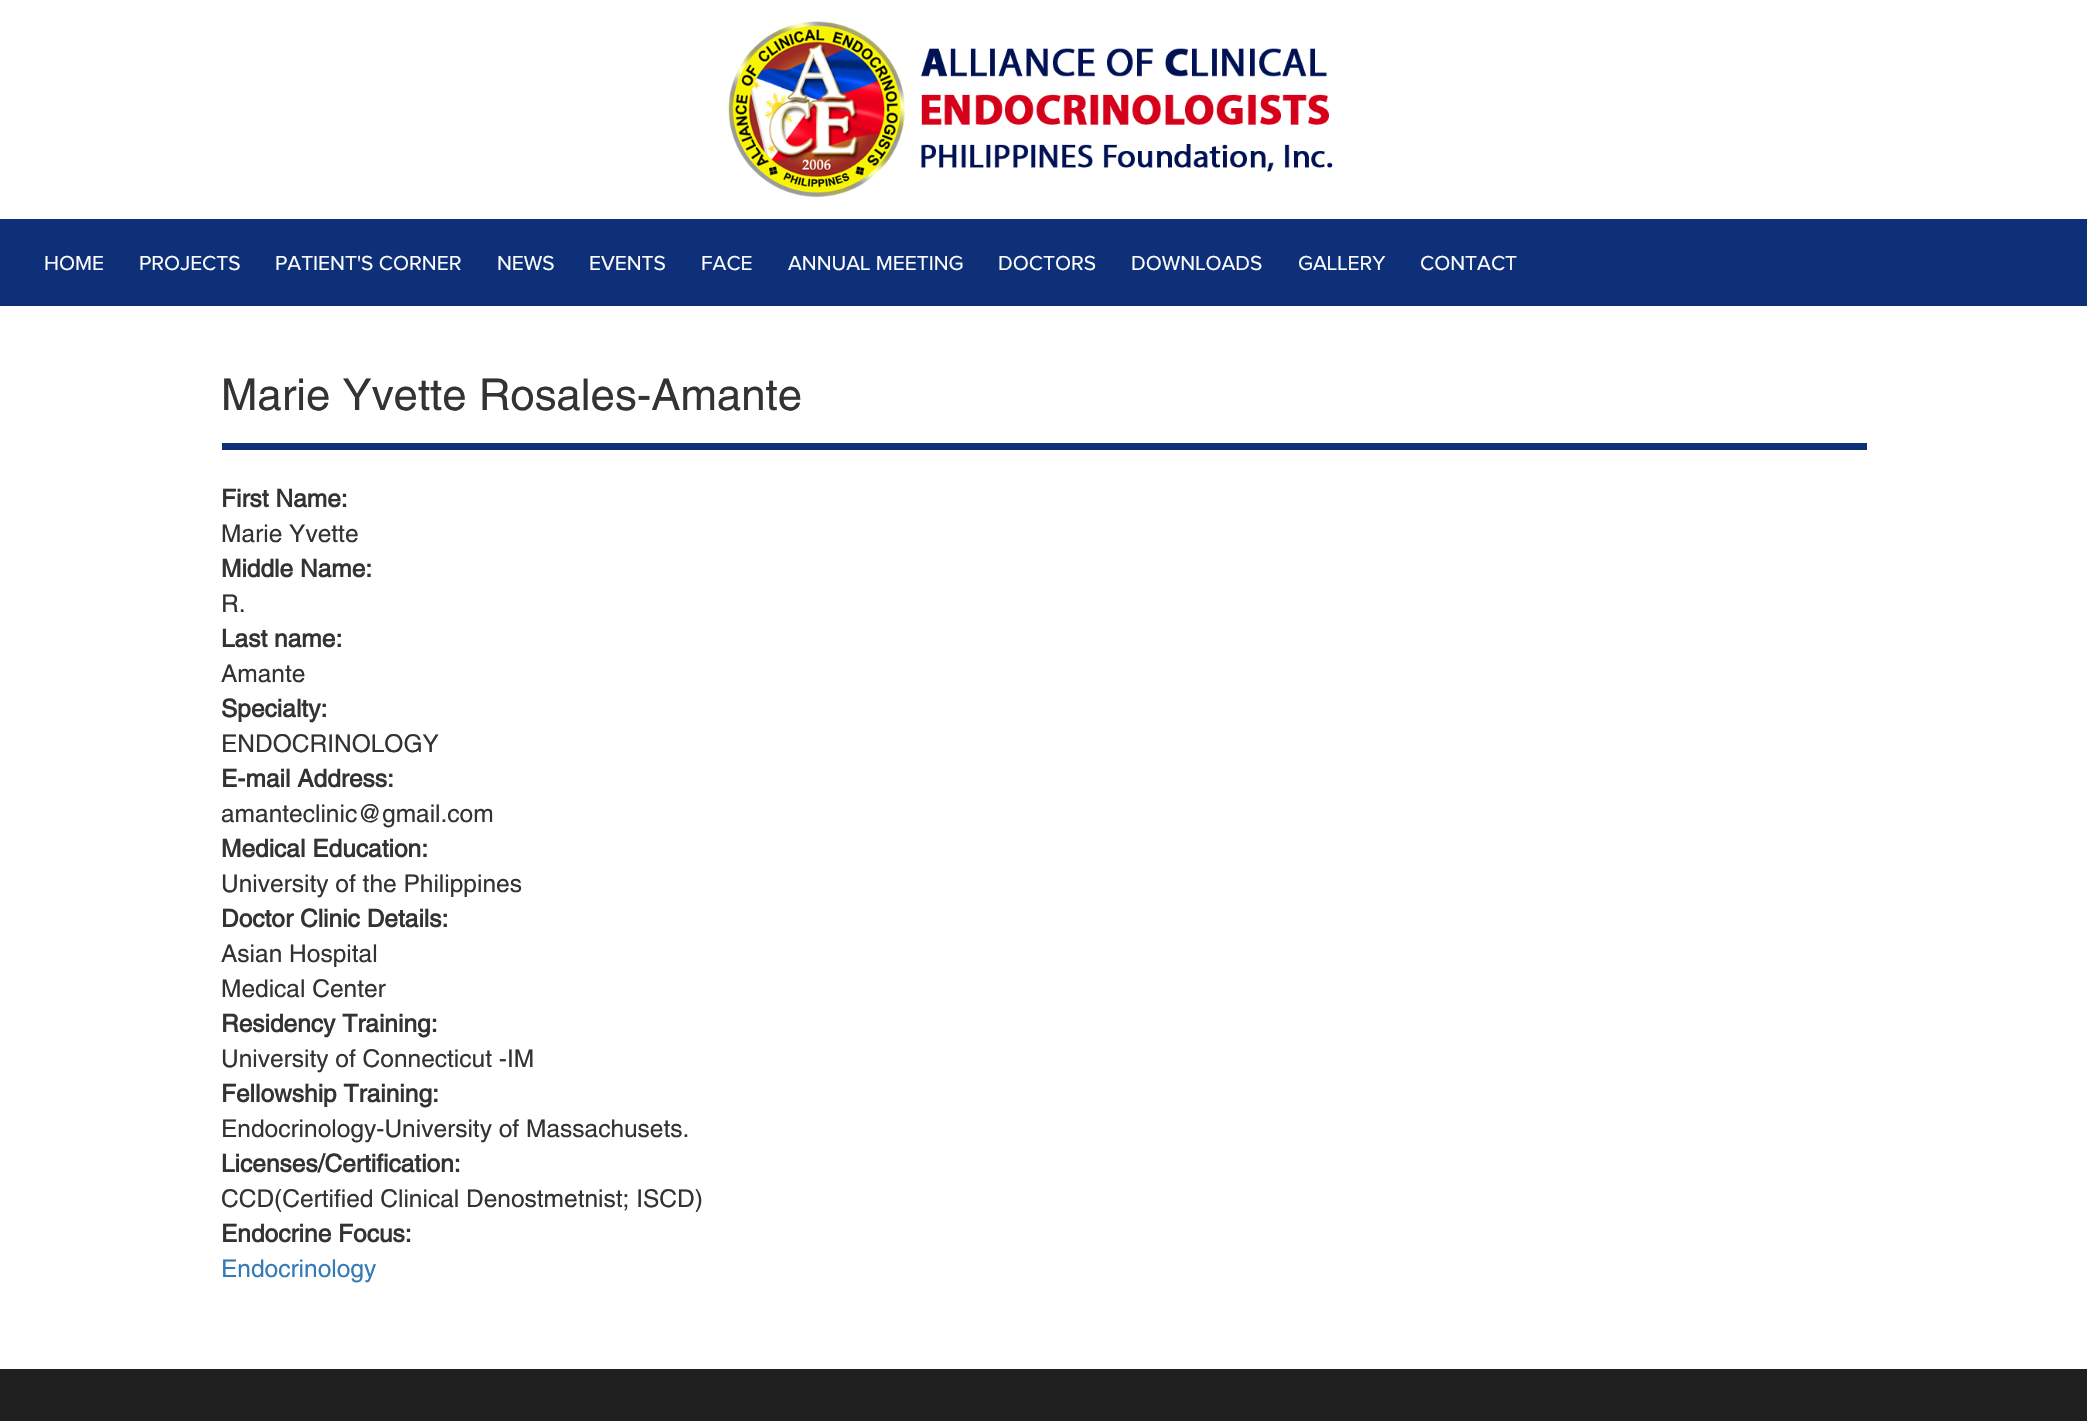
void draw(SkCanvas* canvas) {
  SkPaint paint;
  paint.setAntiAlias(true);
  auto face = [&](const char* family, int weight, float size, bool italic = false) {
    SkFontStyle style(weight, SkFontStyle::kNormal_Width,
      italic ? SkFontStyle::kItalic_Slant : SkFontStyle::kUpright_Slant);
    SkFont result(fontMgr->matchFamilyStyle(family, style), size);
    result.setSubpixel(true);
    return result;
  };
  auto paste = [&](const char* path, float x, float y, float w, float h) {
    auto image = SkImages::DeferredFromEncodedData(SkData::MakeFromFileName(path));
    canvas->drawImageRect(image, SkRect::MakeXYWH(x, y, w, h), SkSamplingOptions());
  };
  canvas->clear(0xffffffff);
  paste("img/1.png", 728, 21, 605, 176);
  {
    const struct { float x, y, w, h; SkColor color; } items[] = {
      {0, 219, 2087, 87, 0xff0d3078},
      {222, 443, 1645, 7, 0xff0d3078},
      {0, 1369, 2087, 52, 0xff1f1f1f},
    };
    for (auto [x, y, w, h, color] : items) {
      paint.setColor(color);
      canvas->drawRect(SkRect::MakeXYWH(x, y, w, h), paint);
    }
  }
  auto f0 = face("Proxima Nova", 400, 21);
  paint.setColor(0xffffffff);
  {
    const struct { const char* s; float x, y; } items[] = {
      {"HOME", 44, 270},
      {"PROJECTS", 139, 270},
      {"PATIENT'S CORNER", 275, 270},
      {"NEWS", 497, 270},
      {"EVENTS", 589, 270},
      {"FACE", 701, 270},
      {"ANNUAL MEETING", 788, 270},
      {"DOCTORS", 998, 270},
      {"DOWNLOADS", 1131, 270},
      {"GALLERY", 1298, 270},
      {"CONTACT", 1420, 270},
    };
    for (auto [s, x, y] : items) {
      canvas->drawString(s, x, y, f0, paint);
    }
  }
  auto f1 = face("Helvetica", 400, 43.75f);
  paint.setColor(0xff333333);
  canvas->drawString("Marie Yvette Rosales-Amante", 221, 410, f1, paint);
  auto f2 = face("Helvetica", 700, 24.5f);
  canvas->drawString("First Name:", 221, 507, f2, paint);
  auto f3 = face("Helvetica", 400, 24.5f);
  canvas->drawString("Marie Yvette", 221, 542, f3, paint);
  canvas->drawString("Middle Name:", 221, 577, f2, paint);
  canvas->drawString("R.", 221, 612, f3, paint);
  canvas->drawString("Last name:", 221, 647, f2, paint);
  canvas->drawString("Amante", 221, 682, f3, paint);
  canvas->drawString("Specialty:", 221, 717, f2, paint);
  canvas->drawString("ENDOCRINOLOGY", 221, 752, f3, paint);
  canvas->drawString("E-mail Address:", 221, 787, f2, paint);
  canvas->drawString("amanteclinic@gmail.com", 221, 822, f3, paint);
  canvas->drawString("Medical Education:", 221, 857, f2, paint);
  canvas->drawString("University of the Philippines", 221, 892, f3, paint);
  canvas->drawString("Doctor Clinic Details:", 221, 927, f2, paint);
  canvas->drawString("Asian Hospital", 221, 962, f3, paint);
  canvas->drawString("Medical Center", 221, 997, f3, paint);
  canvas->drawString("Residency Training:", 221, 1032, f2, paint);
  canvas->drawString("University of Connecticut -IM", 221, 1067, f3, paint);
  canvas->drawString("Fellowship Training:", 221, 1102, f2, paint);
  canvas->drawString("Endocrinology-University of Massachusets.", 221, 1137, f3, paint);
  canvas->drawString("Licenses/Certification:", 221, 1172, f2, paint);
  canvas->drawString("CCD(Certified Clinical Denostmetnist; ISCD)", 221, 1207, f3, paint);
  canvas->drawString("Endocrine Focus:", 221, 1242, f2, paint);
  paint.setColor(0xff337ab7);
  canvas->drawString("Endocrinology", 221, 1277, f3, paint);
}
